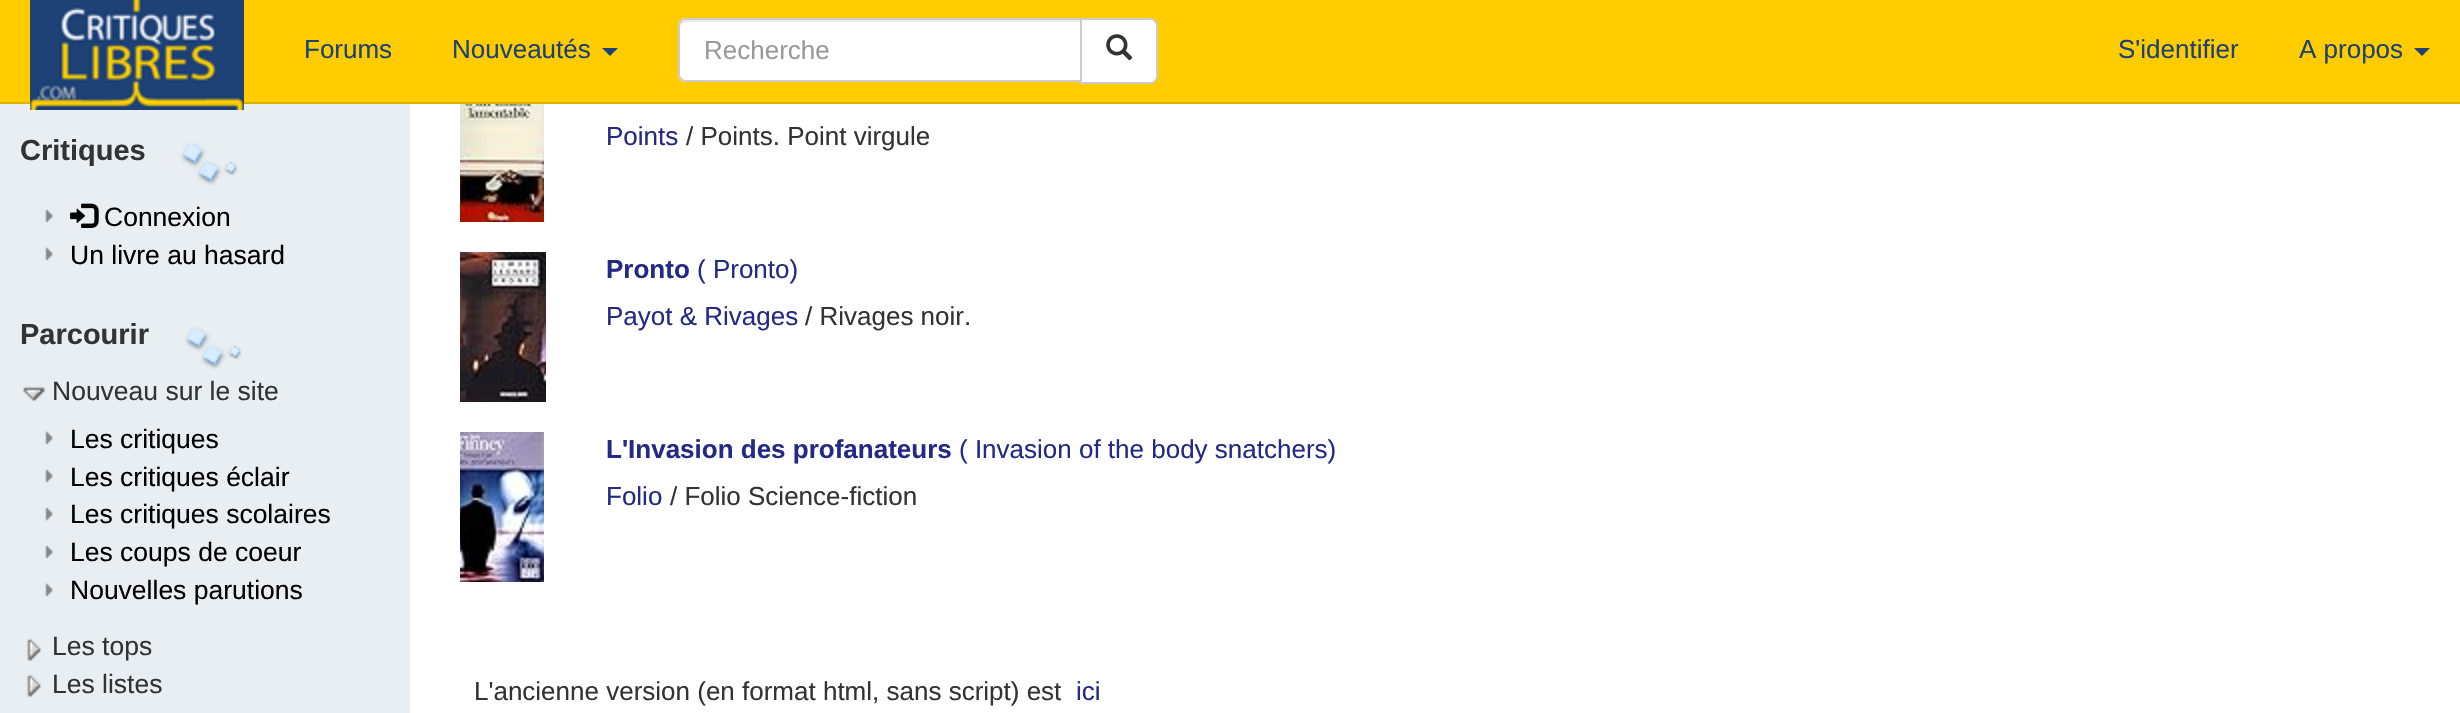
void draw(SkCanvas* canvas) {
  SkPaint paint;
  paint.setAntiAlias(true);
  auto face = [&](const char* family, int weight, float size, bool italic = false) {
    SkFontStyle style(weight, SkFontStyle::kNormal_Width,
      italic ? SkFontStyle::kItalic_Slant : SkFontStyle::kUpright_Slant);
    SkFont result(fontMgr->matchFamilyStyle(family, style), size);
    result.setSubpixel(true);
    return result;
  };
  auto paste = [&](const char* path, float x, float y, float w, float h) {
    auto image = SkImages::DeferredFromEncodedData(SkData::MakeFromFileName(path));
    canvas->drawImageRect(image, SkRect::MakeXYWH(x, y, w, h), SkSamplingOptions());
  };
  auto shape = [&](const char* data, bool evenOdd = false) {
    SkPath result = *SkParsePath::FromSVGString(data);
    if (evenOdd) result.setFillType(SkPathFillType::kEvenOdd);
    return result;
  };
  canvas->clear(0xffffffff);
  {
    const struct { float x, y, w, h; SkColor color; } items[] = {
      {0, 0, 2460, 102, 0xffffcc00},
      {0, 102, 2460, 2, 0xffdeb100},
      {0, 104, 410, 609, 0xffe8eef1},
    };
    for (auto [x, y, w, h, color] : items) {
      paint.setColor(color);
      canvas->drawRect(SkRect::MakeXYWH(x, y, w, h), paint);
    }
  }
  paste("img/1.png", 30, 0, 214, 110);
  paint.setColor(0xff1e4176);
  canvas->drawPath(shape("M602 48H618L610 56Z"), paint);
  paint.setColor(0xffffffff);
  canvas->drawPath(shape("M686 18H1082V82H686C681.5 82 678 78.5 678 74V26C678 21.5 681.5 18 686 18Z"), paint);
  paint.setColor(0xffececec);
  canvas->drawPath(shape("M686 22H1080V20H686C681 20 680 24 680 28C680 25 683 22 686 22Z"), paint);
  paint.setStroke(true);
  paint.setStrokeWidth(2);
  paint.setColor(0xffcccccc);
  canvas->drawPath(shape("M686 19H1081V81H686C682 81 679 78 679 74V26C679 22 682 19 686 19Z"), paint);
  paint.setStroke(false);
  paint.setColor(0xffffffff);
  canvas->drawPath(shape("M1081 19H1150C1154 19 1157 22 1157 26V76C1157 80 1154 83 1150 83H1081Z"), paint);
  paint.setStroke(true);
  paint.setColor(0xffcccccc);
  canvas->drawPath(shape("M1081 19H1150C1154 19 1157 22 1157 26V76C1157 80 1154 83 1150 83H1081Z"), paint);
  paste("img/2.png", 1106, 34, 27, 27);
  paint.setStroke(false);
  paint.setColor(0xff1e4176);
  canvas->drawPath(shape("M2414 48H2430L2422 56Z"), paint);
  paste("img/3.png", 181, 142, 57, 44);
  paste("img/4.png", 45, 209, 8, 14);
  paste("img/5.png", 70, 203, 29, 25);
  paste("img/4.png", 45, 247, 8, 14);
  paste("img/3.png", 185, 326, 57, 44);
  paste("img/6.png", 22, 386, 24, 16);
  paste("img/4.png", 45, 431, 8, 14);
  paste("img/4.png", 45, 469, 8, 14);
  paste("img/4.png", 45, 507, 8, 14);
  paste("img/4.png", 45, 545, 8, 14);
  paste("img/4.png", 45, 583, 8, 14);
  paste("img/7.png", 26, 638, 16, 24);
  paste("img/7.png", 26, 674, 16, 24);
  paste("img/8.png", 460, 104, 84, 118);
  paste("img/9.png", 460, 252, 86, 150);
  paste("img/10.png", 460, 432, 84, 150);
  auto f0 = face("Liberation Sans", 400, 26);
  canvas->drawString("Forums", 304, 58, f0, paint);
  canvas->drawString("Nouveautés", 452, 58, f0, paint);
  paint.setColor(0xff999999);
  canvas->drawString("Recherche", 704, 59, f0, paint);
  paint.setColor(0xff1e4176);
  canvas->drawString("S'identifier", 2118, 58, f0, paint);
  canvas->drawString("A propos", 2299, 58, f0, paint);
  auto f1 = face("Liberation Sans", 700, 29);
  paint.setColor(0xff333333);
  canvas->drawString("Critiques", 20, 160, f1, paint);
  auto f2 = face("Liberation Sans", 400, 26.5f);
  paint.setColor(0xff000000);
  canvas->drawString("Connexion", 104, 226, f2, paint);
  canvas->drawString("Un livre au hasard", 70, 264, f2, paint);
  paint.setColor(0xff333333);
  canvas->drawString("Parcourir", 20, 344, f1, paint);
  canvas->drawString("Nouveau sur le site", 52, 400, f2, paint);
  paint.setColor(0xff000000);
  {
    const struct { const char* s; float x, y; } items[] = {
      {"Les critiques", 70, 448},
      {"Les critiques éclair", 70, 486},
      {"Les critiques scolaires", 70, 523},
      {"Les coups de coeur", 70, 561},
      {"Nouvelles parutions", 70, 599},
    };
    for (auto [s, x, y] : items) {
      canvas->drawString(s, x, y, f2, paint);
    }
  }
  paint.setColor(0xff333333);
  canvas->drawString("Les tops", 52, 655, f2, paint);
  canvas->drawString("Les listes", 52, 693, f2, paint);
  paint.setColor(0xff232984);
  canvas->drawString("Points", 606, 145, f0, paint);
  paint.setColor(0xff333333);
  canvas->drawString("/ Points. Point virgule", 686, 145, f0, paint);
  auto f3 = face("Liberation Sans", 700, 26);
  paint.setColor(0xff232984);
  canvas->drawString("Pronto", 606, 278, f3, paint);
  canvas->drawString("( Pronto)", 697, 278, f0, paint);
  canvas->drawString("Payot & Rivages", 606, 325, f0, paint);
  paint.setColor(0xff333333);
  canvas->drawString("/ Rivages noir.", 805, 325, f0, paint);
  paint.setColor(0xff232984);
  canvas->drawString("L'Invasion des profanateurs", 606, 458, f3, paint);
  canvas->drawString("( Invasion of the body snatchers)", 959, 458, f0, paint);
  canvas->drawString("Folio", 606, 505, f0, paint);
  paint.setColor(0xff333333);
  canvas->drawString("/ Folio Science-fiction", 670, 505, f0, paint);
  canvas->drawString("L'ancienne version (en format html, sans script) est", 474, 700, f0, paint);
  paint.setColor(0xff232984);
  canvas->drawString("ici", 1076, 700, f0, paint);
}
